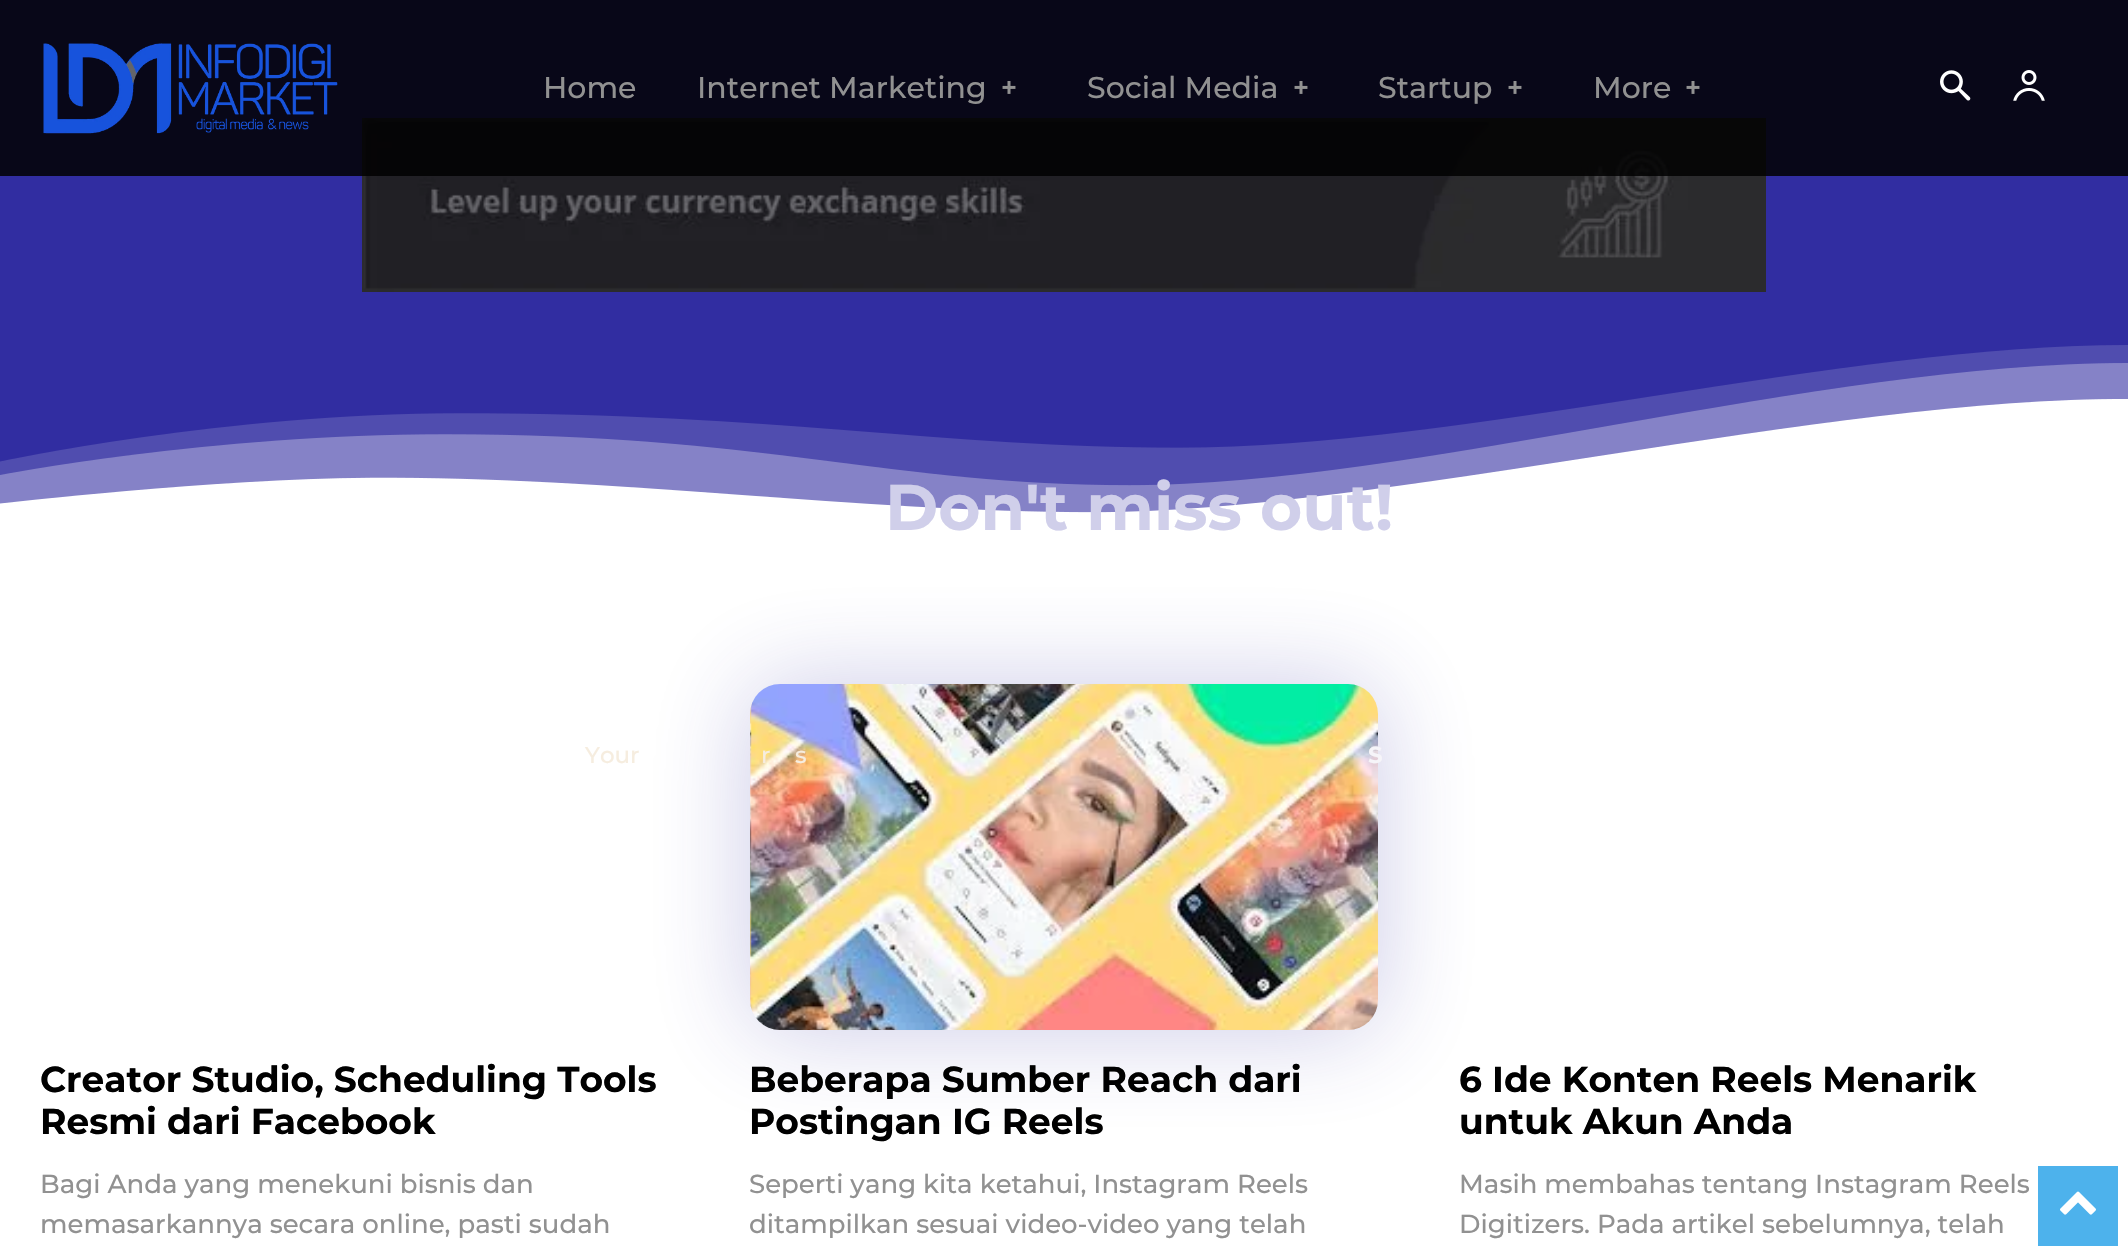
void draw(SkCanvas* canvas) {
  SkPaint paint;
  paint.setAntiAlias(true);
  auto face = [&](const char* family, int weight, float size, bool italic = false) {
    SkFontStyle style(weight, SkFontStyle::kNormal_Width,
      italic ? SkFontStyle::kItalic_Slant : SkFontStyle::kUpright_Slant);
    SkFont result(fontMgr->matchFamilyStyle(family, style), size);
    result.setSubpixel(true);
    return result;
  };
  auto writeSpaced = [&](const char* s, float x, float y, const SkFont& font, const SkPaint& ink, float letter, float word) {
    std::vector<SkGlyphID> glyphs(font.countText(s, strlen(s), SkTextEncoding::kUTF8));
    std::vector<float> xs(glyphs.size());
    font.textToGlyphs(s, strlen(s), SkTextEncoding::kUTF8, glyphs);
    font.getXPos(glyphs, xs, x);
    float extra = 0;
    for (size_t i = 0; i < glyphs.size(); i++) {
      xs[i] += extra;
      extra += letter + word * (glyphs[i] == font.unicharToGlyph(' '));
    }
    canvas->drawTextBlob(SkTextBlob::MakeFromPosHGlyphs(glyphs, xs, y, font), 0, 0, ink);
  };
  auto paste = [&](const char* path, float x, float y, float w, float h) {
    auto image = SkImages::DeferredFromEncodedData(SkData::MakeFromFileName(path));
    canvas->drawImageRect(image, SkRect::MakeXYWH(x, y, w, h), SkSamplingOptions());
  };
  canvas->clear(0xffffffff);
  paint.setColor(0xff312da1);
  canvas->drawRect(SkRect::MakeXYWH(0, 0, 2128, 513), paint);
  paste("img/5.png", 362, 118, 1404, 174);
  paint.setColor(0xd9000000);
  canvas->drawRect(SkRect::MakeXYWH(0, 0, 2128, 176), paint);
  paste("img/1.png", 43, 43, 295, 91);
  paste("img/2.png", 1002, 81, 14, 13);
  paste("img/2.png", 1294, 81, 14, 13);
  paste("img/2.png", 1508, 81, 14, 13);
  paste("img/2.png", 1686, 81, 14, 13);
  paste("img/3.png", 1940, 70, 31, 31);
  paste("img/4.png", 2013, 70, 32, 31);
  paste("img/6.png", 0, 345, 2128, 179);
  paint.setColor(0x40312da1);
  paint.setMaskFilter(SkMaskFilter::MakeBlur(kNormal_SkBlurStyle, 50));
  canvas->drawRoundRect(SkRect::MakeXYWH(750, 684, 628, 346), 30, 30, paint);
  paint.setMaskFilter(nullptr);
  paste("img/7.png", 750, 684, 628, 346);
  paint.setColor(0xff4db2ec);
  canvas->drawRect(SkRect::MakeXYWH(2038, 1166, 80, 80), paint);
  paste("img/8.png", 2060, 1191, 36, 24);
  auto f0 = face("Montserrat", 500, 30);
  paint.setColor(0xff919191);
  {
    const struct { const char* s; float x, y; } items[] = {
      {"Home", 543, 98},
      {"Internet Marketing", 697, 98},
      {"Social Media", 1087, 98},
      {"Startup", 1378, 98},
      {"More", 1593, 98},
    };
    for (auto [s, x, y] : items) {
      canvas->drawString(s, x, y, f0, paint);
    }
  }
  auto f1 = face("Montserrat", 700, 36);
  paint.setColor(0xff000000);
  canvas->drawString("Creator Studio, Scheduling Tools", 40, 1092, f1, paint);
  canvas->drawString("Resmi dari Facebook", 40, 1134, f1, paint);
  auto f2 = face("Montserrat", 500, 26);
  paint.setColor(0xff919191);
  canvas->drawString("Bagi Anda yang menekuni bisnis dan", 40, 1193, f2, paint);
  canvas->drawString("memasarkannya secara online, pasti sudah", 40, 1233, f2, paint);
  paint.setColor(0xff000000);
  canvas->drawString("Beberapa Sumber Reach dari", 749, 1092, f1, paint);
  canvas->drawString("Postingan IG Reels", 749, 1134, f1, paint);
  paint.setColor(0xff919191);
  canvas->drawString("Seperti yang kita ketahui, Instagram Reels", 749, 1193, f2, paint);
  canvas->drawString("ditampilkan sesuai video-video yang telah", 749, 1233, f2, paint);
  paint.setColor(0xff000000);
  canvas->drawString("6 Ide Konten Reels Menarik", 1459, 1092, f1, paint);
  canvas->drawString("untuk Akun Anda", 1459, 1134, f1, paint);
  paint.setColor(0xff919191);
  canvas->drawString("Masih membahas tentang Instagram Reels", 1459, 1193, f2, paint);
  canvas->drawString("Digitizers. Pada artikel sebelumnya, telah", 1459, 1233, f2, paint);
  auto f3 = face("Montserrat", 700, 64.5f);
  paint.setColor(0xffd0cfea);
  canvas->drawString("Don't miss out!", 885, 530, f3, paint);
  auto f4 = face("Montserrat", 500, 23);
  paint.setColor(0xfff6eddf);
  {
    const struct { const char* s; float x, y; } items[] = {
      {"Your", 585, 763},
      {"r", 761, 763},
      {"s", 795, 763},
    };
    for (auto [s, x, y] : items) {
      canvas->drawString(s, x, y, f4, paint);
    }
  }
  auto f5 = face("Montserrat", 700, 23);
  paint.setColor(0xfff6f5f9);
  writeSpaced("S", 1368, 763, f5, paint, 3, 0);
}
